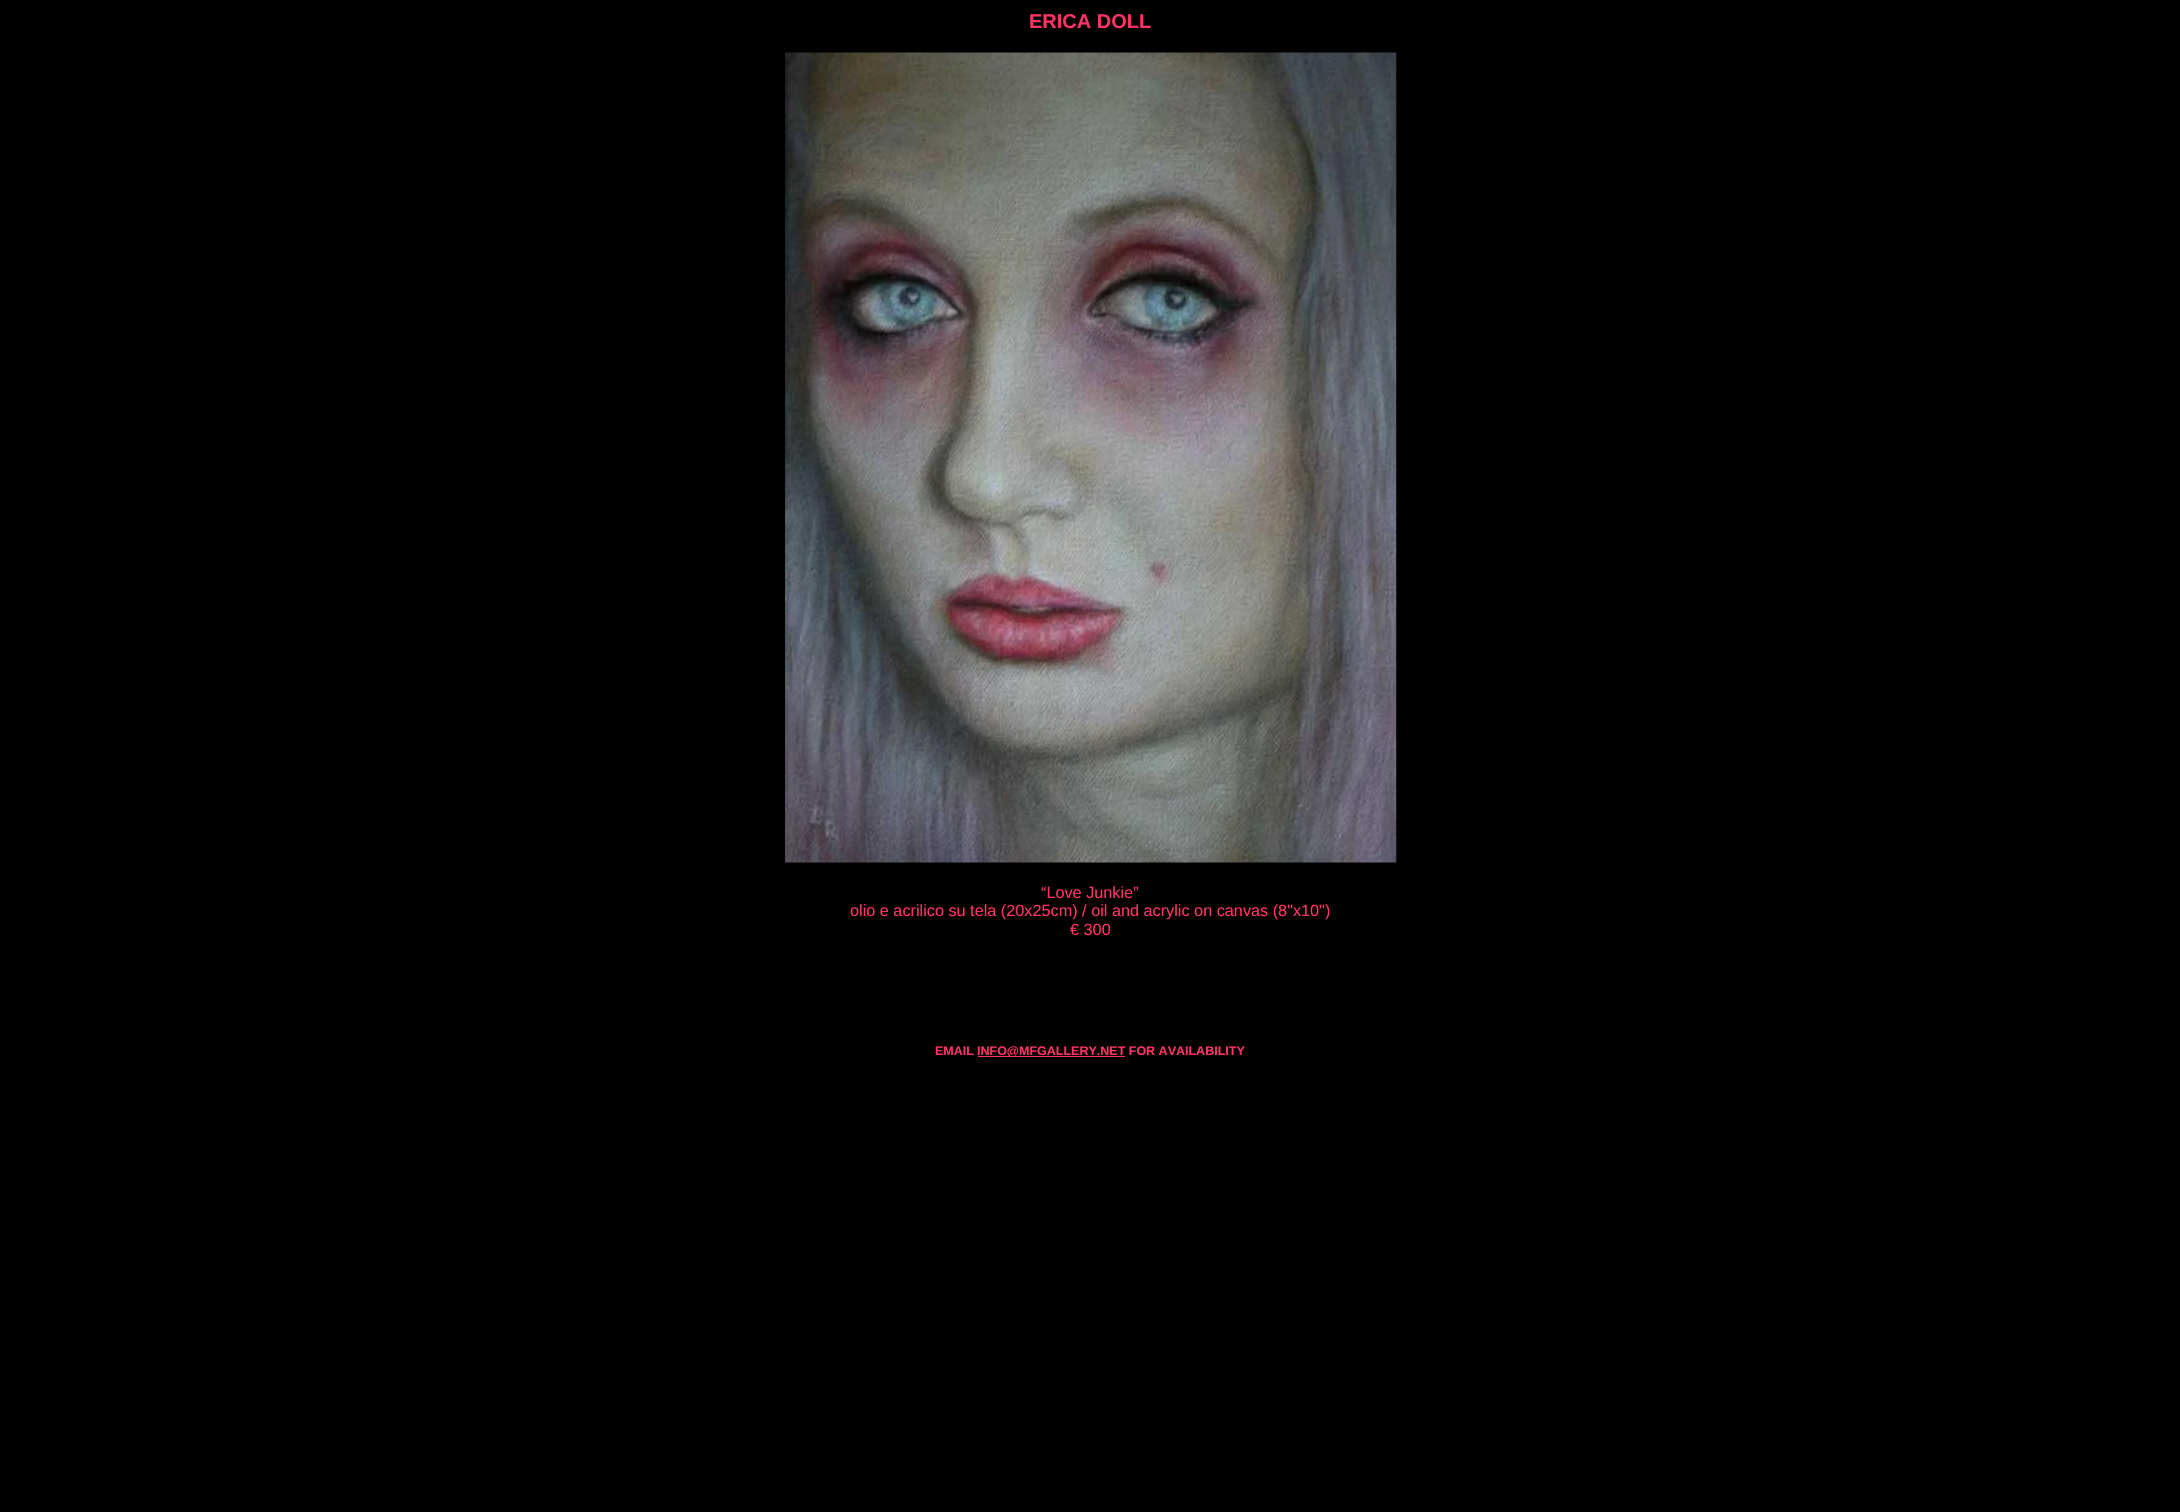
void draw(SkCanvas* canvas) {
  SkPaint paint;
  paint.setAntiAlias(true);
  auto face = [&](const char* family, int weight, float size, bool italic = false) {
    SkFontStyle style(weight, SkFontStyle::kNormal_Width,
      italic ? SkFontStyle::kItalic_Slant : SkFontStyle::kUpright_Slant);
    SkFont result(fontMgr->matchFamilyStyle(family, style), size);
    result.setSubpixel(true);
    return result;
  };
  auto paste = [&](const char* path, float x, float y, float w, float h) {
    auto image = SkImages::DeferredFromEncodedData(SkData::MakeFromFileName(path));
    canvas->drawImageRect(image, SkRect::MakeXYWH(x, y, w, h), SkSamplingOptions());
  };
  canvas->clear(0xff000000);
  paste("img/1.png", 785, 52, 612, 811);
  paint.setColor(0xffff3366);
  canvas->drawRect(SkRect::MakeXYWH(978, 1056, 147, 1), paint);
  auto f0 = face("Liberation Sans", 700, 20);
  canvas->drawString("ERICA DOLL", 1029, 28, f0, paint);
  auto f1 = face("Liberation Sans", 400, 16.25f);
  {
    const struct { const char* s; float x, y; } items[] = {
      {"“Love Junkie”", 1041, 898},
      {"olio e acrilico su tela (20x25cm) / oil and acrylic on canvas (8\"x10\")", 850, 916},
      {"€ 300", 1070, 935},
    };
    for (auto [s, x, y] : items) {
      canvas->drawString(s, x, y, f1, paint);
    }
  }
  auto f2 = face("Liberation Sans", 700, 12.5f);
  canvas->drawString("EMAIL", 935, 1055, f2, paint);
  canvas->drawString("INFO@MFGALLERY.NET FOR AVAILABILITY", 977, 1055, f2, paint);
}
